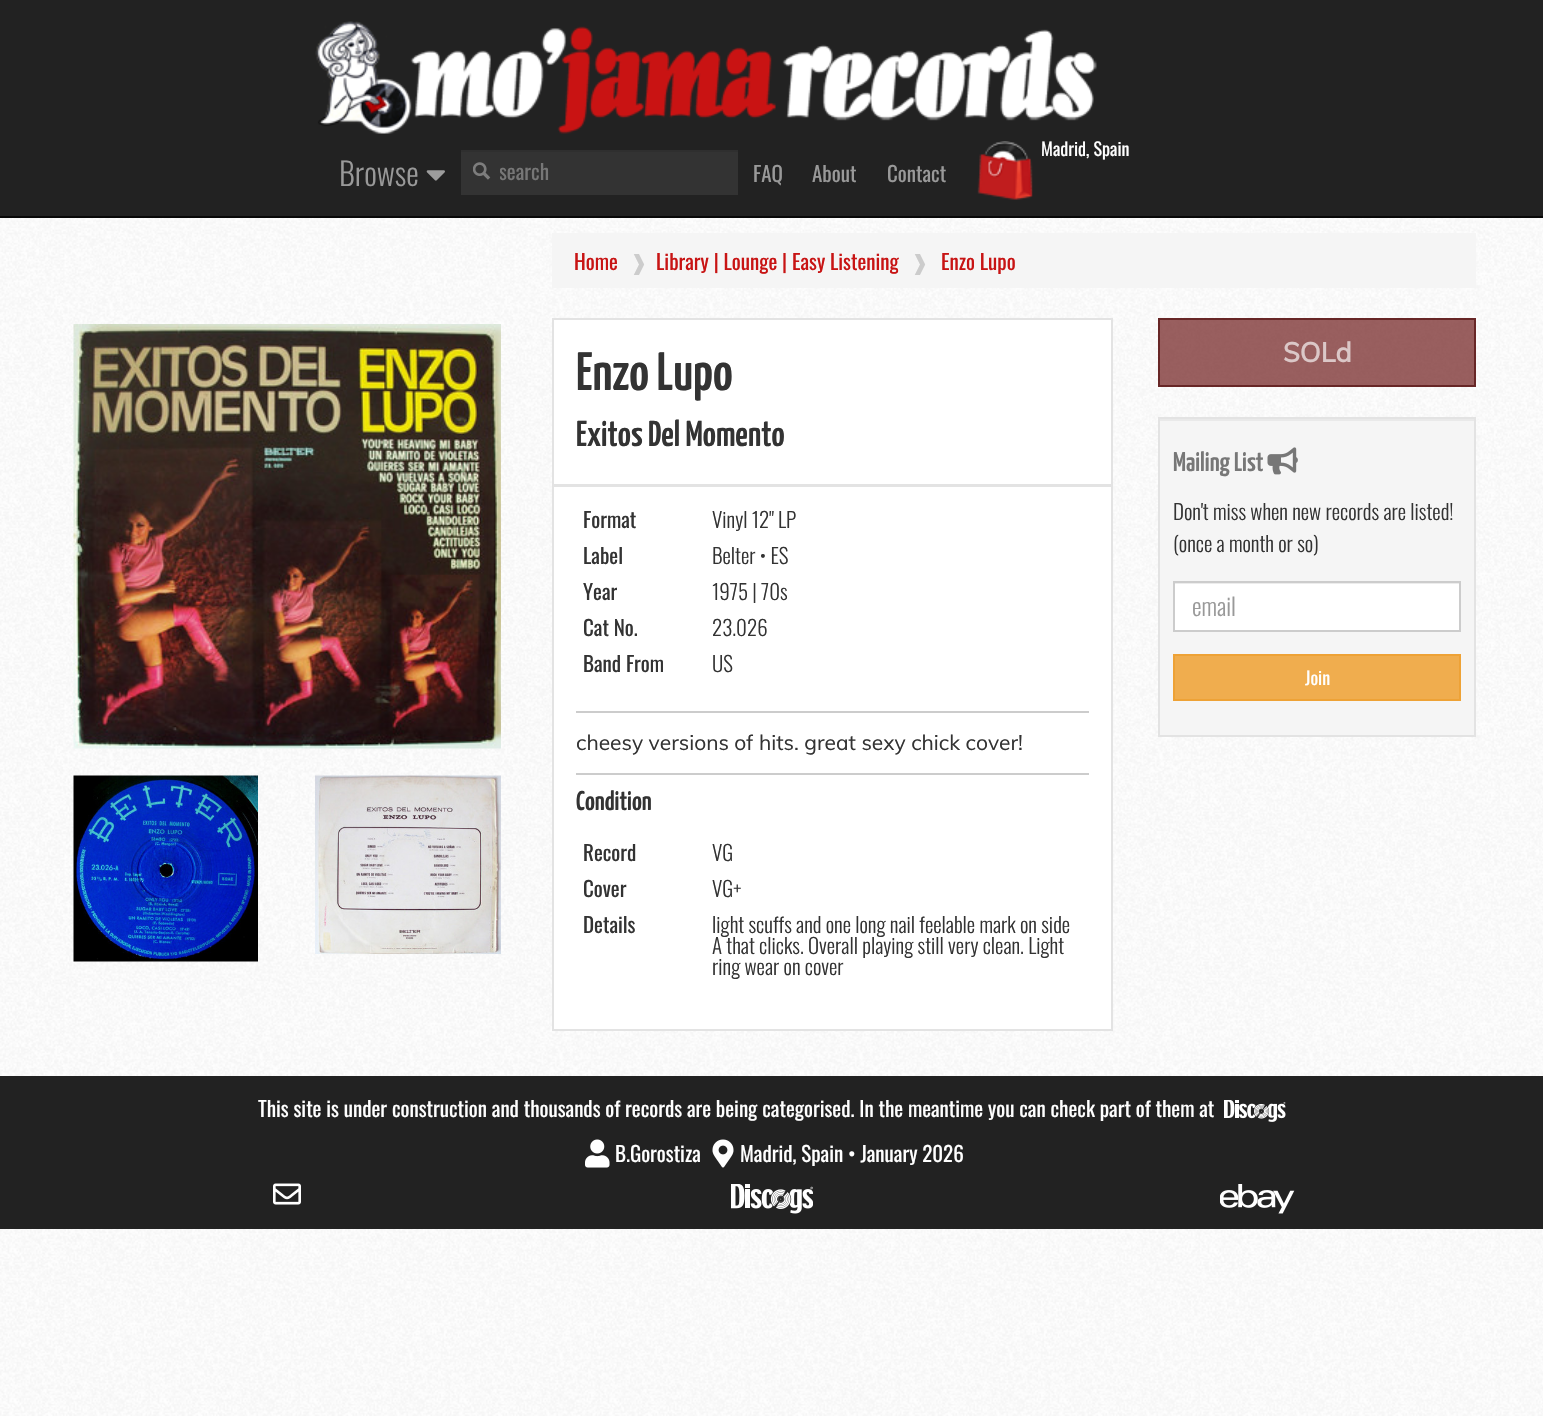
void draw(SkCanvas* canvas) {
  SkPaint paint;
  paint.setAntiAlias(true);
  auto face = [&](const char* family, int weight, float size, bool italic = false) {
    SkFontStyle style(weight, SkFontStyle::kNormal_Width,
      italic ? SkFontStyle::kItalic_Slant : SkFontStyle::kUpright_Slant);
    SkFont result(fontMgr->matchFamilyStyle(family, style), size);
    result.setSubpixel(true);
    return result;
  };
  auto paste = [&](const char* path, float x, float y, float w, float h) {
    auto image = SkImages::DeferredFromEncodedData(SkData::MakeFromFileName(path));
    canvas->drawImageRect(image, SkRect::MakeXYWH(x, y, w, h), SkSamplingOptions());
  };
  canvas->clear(0xffffffff);
  paste("img/1.png", 0, 218, 1543, 1198);
  paint.setColor(0xff222222);
  canvas->drawRect(SkRect::MakeXYWH(0, 0, 1543, 216), paint);
  paint.setColor(0xff080808);
  canvas->drawRect(SkRect::MakeXYWH(0, 216, 1543, 2), paint);
  paste("img/2.png", 315, 21, 782, 113);
  paste("img/3.png", 426, 170, 19, 11);
  paste("img/4.png", 977, 141, 56, 59);
  paint.setColor(0xff333333);
  canvas->drawRect(SkRect::MakeXYWH(461, 152, 277, 43), paint);
  paste("img/5.png", 473, 162, 18, 18);
  paint.setColor(0xff2f2f2f);
  canvas->drawRect(SkRect::MakeXYWH(461, 150, 277, 2), paint);
  paint.setColor(0xfff5f5f5);
  canvas->drawRect(SkRect::MakeXYWH(552, 233, 924, 55), paint);
  paste("img/6.png", 73, 324, 428, 425);
  paste("img/7.png", 73, 775, 185, 187);
  paste("img/8.png", 315, 775, 186, 179);
  paint.setColor(0xffffffff);
  canvas->drawRect(SkRect::MakeXYWH(553, 319, 559, 166), paint);
  paint.setStroke(true);
  paint.setStrokeWidth(2);
  paint.setColor(0xffe3e3e3);
  canvas->drawRect(SkRect::MakeXYWH(553, 319, 559, 166), paint);
  paint.setStroke(false);
  paint.setColor(0xffffffff);
  canvas->drawRect(SkRect::MakeXYWH(553, 486, 559, 544), paint);
  paint.setStroke(true);
  paint.setColor(0xffe3e3e3);
  canvas->drawRect(SkRect::MakeXYWH(553, 486, 559, 544), paint);
  paint.setStroke(false);
  {
    const struct { float x, y, w, h; SkColor color; } items[] = {
      {576, 711, 513, 2, 0xffcccccc},
      {576, 773, 513, 2, 0xffcccccc},
      {1158, 318, 318, 69, 0xa6640a0a},
    };
    for (auto [x, y, w, h, color] : items) {
      paint.setColor(color);
      canvas->drawRect(SkRect::MakeXYWH(x, y, w, h), paint);
    }
  }
  paint.setStroke(true);
  paint.setColor(0xa64d0808);
  canvas->drawRect(SkRect::MakeXYWH(1159, 319, 316, 67), paint);
  paint.setStroke(false);
  paint.setColor(0xfff5f5f5);
  canvas->drawRect(SkRect::MakeXYWH(1160, 421, 314, 314), paint);
  paint.setColor(0xffe9e9e9);
  canvas->drawRect(SkRect::MakeXYWH(1160, 419, 315, 2), paint);
  paint.setStroke(true);
  paint.setColor(0xffe3e3e3);
  canvas->drawRect(SkRect::MakeXYWH(1159, 418, 316, 318), paint);
  paste("img/9.png", 1267, 447, 31, 28);
  paint.setStroke(false);
  paint.setColor(0xffffffff);
  canvas->drawRect(SkRect::MakeXYWH(1175, 584, 284, 46), paint);
  paint.setColor(0xffececec);
  canvas->drawRect(SkRect::MakeXYWH(1175, 583, 285, 1), paint);
  paint.setStroke(true);
  paint.setColor(0xffcccccc);
  canvas->drawRect(SkRect::MakeXYWH(1174, 582, 286, 49), paint);
  paint.setStroke(false);
  paint.setColor(0xfff0ad4e);
  canvas->drawRect(SkRect::MakeXYWH(1174, 655, 286, 45), paint);
  paint.setStroke(true);
  paint.setColor(0xffeea236);
  canvas->drawRect(SkRect::MakeXYWH(1174, 655, 286, 45), paint);
  paint.setStroke(false);
  paint.setColor(0xff222222);
  canvas->drawRect(SkRect::MakeXYWH(0, 1076, 1543, 153), paint);
  paste("img/10.png", 1224, 1100, 62, 22);
  paste("img/11.png", 585, 1139, 25, 29);
  paste("img/12.png", 712, 1139, 22, 29);
  paste("img/13.png", 273, 1183, 28, 22);
  paste("img/14.png", 731, 1184, 82, 30);
  paste("img/15.png", 1220, 1184, 75, 30);
  auto f0 = face("Oswald", 300, 31.5f);
  paint.setColor(0xff999999);
  canvas->drawString("Browse", 339, 186, f0, paint);
  auto f1 = face("Oswald", 400, 18);
  paint.setColor(0xffffffff);
  canvas->drawString("Madrid, Spain", 1041, 156, f1, paint);
  canvas->save();
  canvas->clipRect(SkRect::MakeXYWH(500, 155, 229, 31));
  auto f2 = face("Oswald", 400, 21);
  paint.setColor(0xff777777);
  canvas->drawString("search", 499, 180, f2, paint);
  canvas->restore();
  paint.setColor(0xff999999);
  {
    const struct { const char* s; float x, y; } items[] = {
      {"FAQ", 753, 182},
      {"About", 812, 182},
      {"Contact", 887, 182},
    };
    for (auto [s, x, y] : items) {
      canvas->drawString(s, x, y, f2, paint);
    }
  }
  paint.setColor(0xffc81414);
  canvas->drawString("Home", 574, 270, f2, paint);
  auto f3 = face("DejaVu Sans", 400, 21);
  paint.setColor(0xffcccccc);
  canvas->drawString("❱", 630, 270, f3, paint);
  paint.setColor(0xffc81414);
  canvas->drawString("Library | Lounge | Easy Listening", 656, 270, f2, paint);
  paint.setColor(0xffcccccc);
  canvas->drawString("❱", 911, 270, f3, paint);
  paint.setColor(0xffc81414);
  canvas->drawString("Enzo Lupo", 941, 270, f2, paint);
  auto f4 = face("Yanone Kaffeesatz", 600, 54);
  paint.setColor(0xff333333);
  canvas->drawString("Enzo Lupo", 576, 390, f4, paint);
  auto f5 = face("Yanone Kaffeesatz", 600, 36);
  canvas->drawString("Exitos Del Momento", 576, 446, f5, paint);
  canvas->drawString("Format", 583, 528, f2, paint);
  auto f6 = face("Oswald", 300, 21);
  canvas->drawString("Vinyl 12\" LP", 712, 528, f6, paint);
  canvas->drawString("Label", 583, 564, f2, paint);
  canvas->drawString("Belter • ES", 712, 564, f6, paint);
  canvas->drawString("Year", 583, 600, f2, paint);
  canvas->drawString("1975 | 70s", 712, 600, f6, paint);
  canvas->drawString("Cat No.", 583, 636, f2, paint);
  canvas->drawString("23.026", 712, 636, f6, paint);
  canvas->drawString("Band From", 583, 672, f2, paint);
  canvas->drawString("US", 712, 672, f6, paint);
  auto f7 = face("Muli", 400, 21);
  canvas->drawString("cheesy versions of hits. great sexy chick cover!", 576, 750, f7, paint);
  auto f8 = face("Yanone Kaffeesatz", 600, 27);
  canvas->drawString("Condition", 576, 810, f8, paint);
  canvas->drawString("Record", 583, 861, f2, paint);
  canvas->drawString("VG", 712, 861, f6, paint);
  canvas->drawString("Cover", 583, 897, f2, paint);
  canvas->drawString("VG+", 712, 897, f6, paint);
  canvas->drawString("Details", 583, 933, f2, paint);
  {
    const struct { const char* s; float x, y; } items[] = {
      {"light scuffs and one long nail feelable mark on side", 712, 933},
      {"A that clicks. Overall playing still very clean. Light", 712, 954},
      {"ring wear on cover", 712, 975},
    };
    for (auto [s, x, y] : items) {
      canvas->drawString(s, x, y, f6, paint);
    }
  }
  auto f9 = face("Muli", 700, 27);
  paint.setColor(0xffdbc7c7);
  canvas->drawString("SOLd", 1283, 362, f9, paint);
  paint.setColor(0xff777777);
  canvas->drawString("Mailing List", 1173, 471, f8, paint);
  paint.setColor(0xff333333);
  canvas->drawString("Don't miss when new records are listed!", 1173, 520, f6, paint);
  canvas->drawString("(once a month or so)", 1173, 552, f6, paint);
  auto f10 = face("Oswald", 300, 24);
  paint.setColor(0xff999999);
  canvas->drawString("email", 1192, 616, f10, paint);
  paint.setColor(0xffffffff);
  canvas->drawString("Join", 1305, 685, f1, paint);
  {
    const struct { const char* s; float x, y; } items[] = {
      {"This site is under construction and thousands of records are being categorised. In the meantime you can check part of them at", 258, 1117},
      {"B.Gorostiza", 615, 1162},
      {"Madrid, Spain • January 2026", 740, 1162},
    };
    for (auto [s, x, y] : items) {
      canvas->drawString(s, x, y, f2, paint);
    }
  }
}
